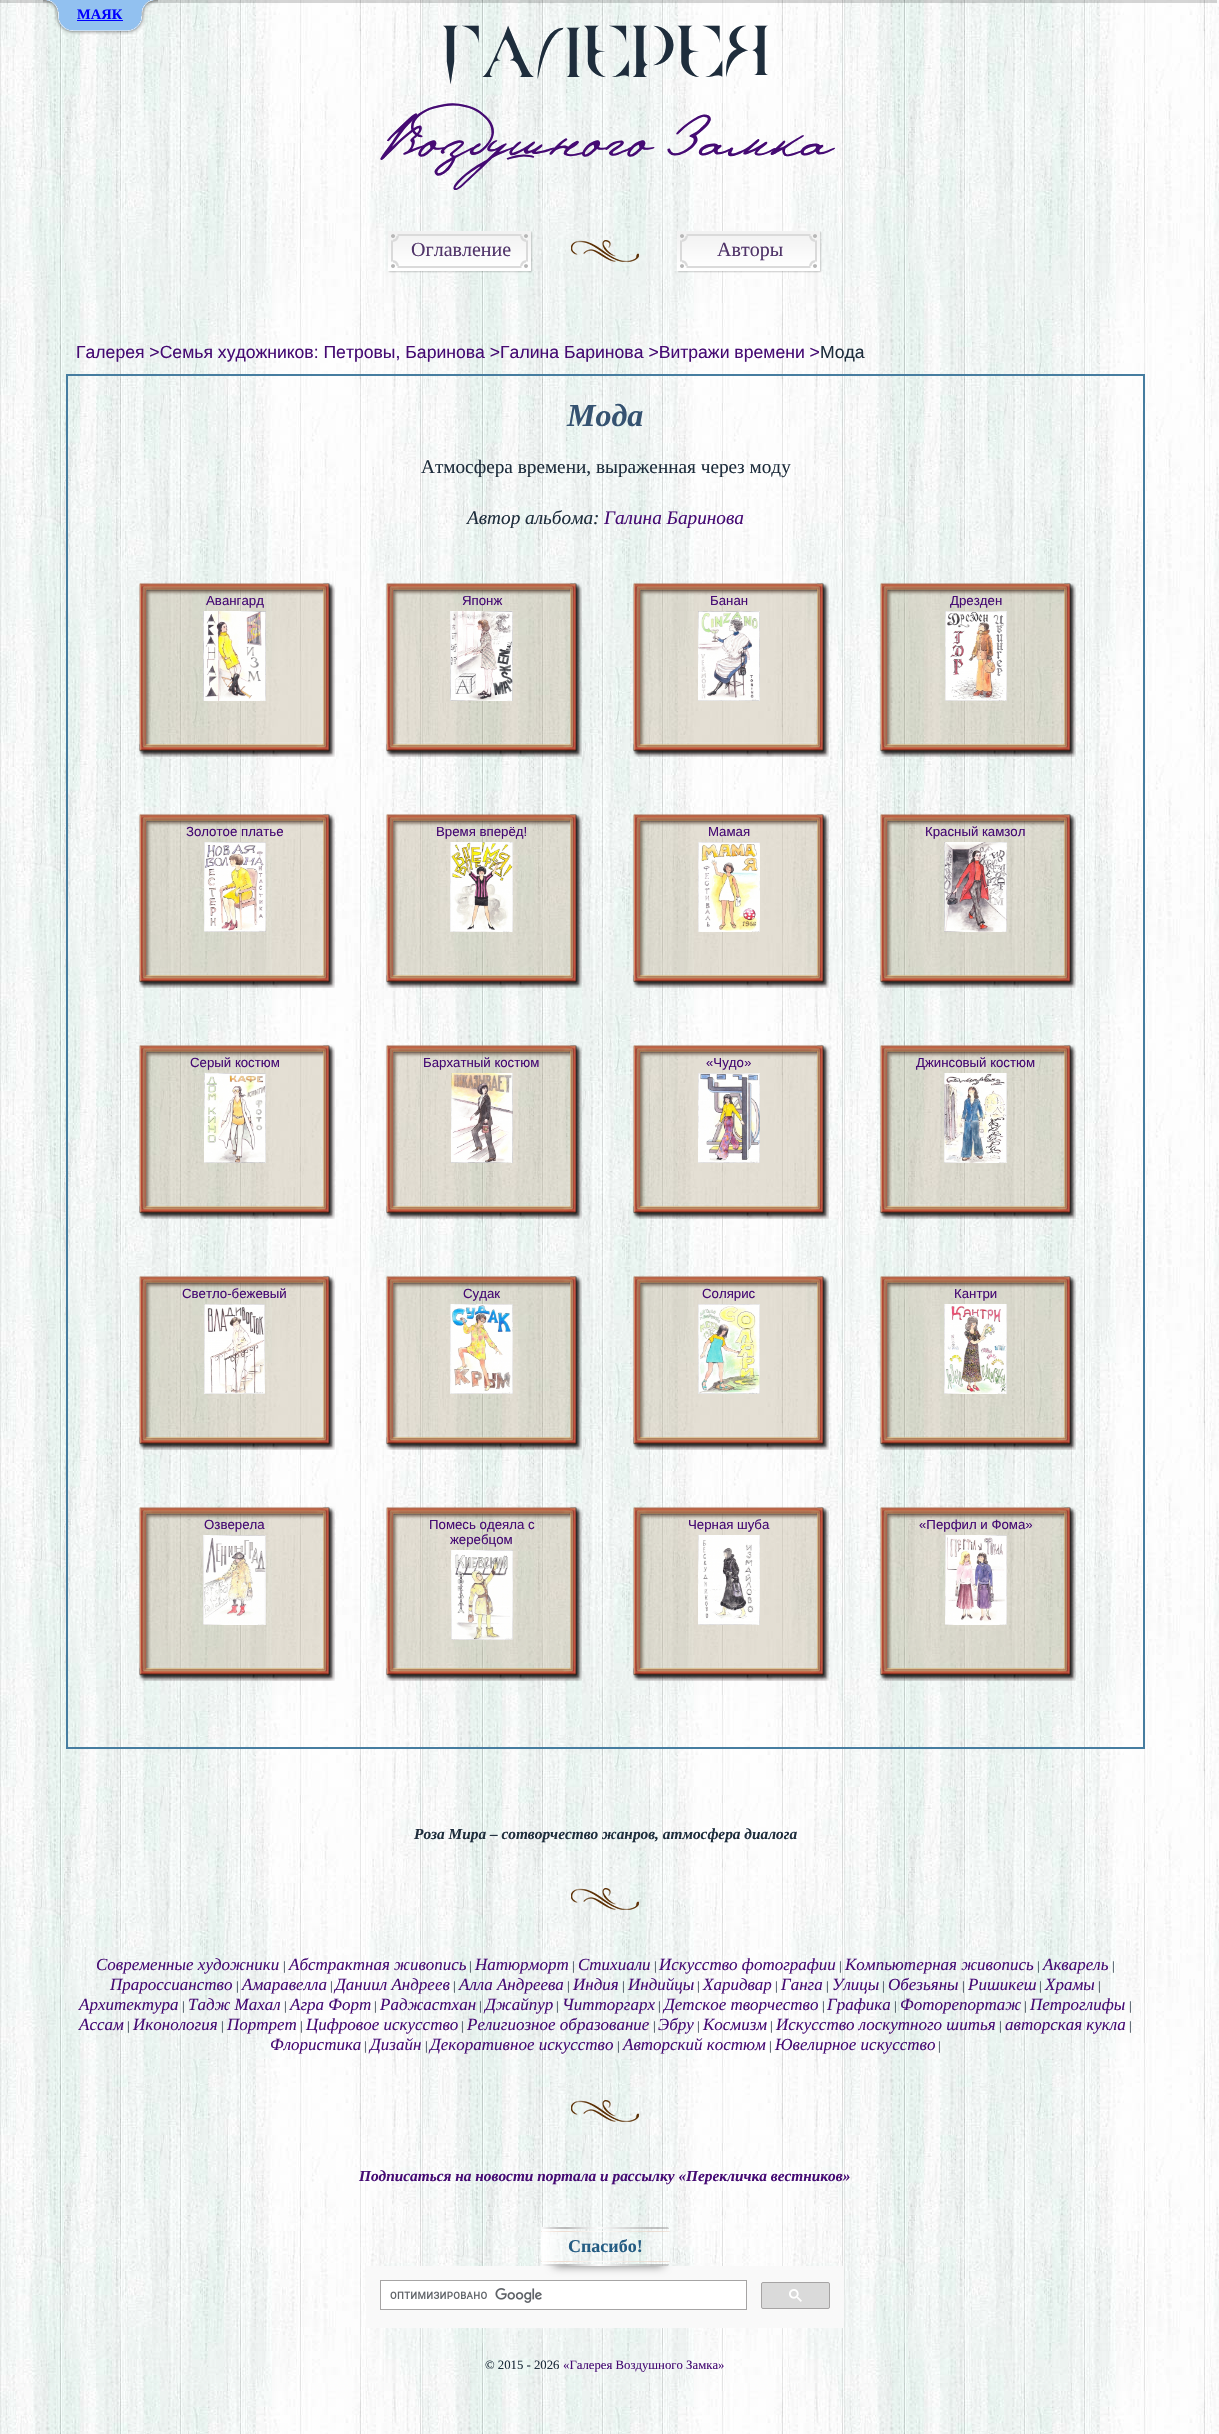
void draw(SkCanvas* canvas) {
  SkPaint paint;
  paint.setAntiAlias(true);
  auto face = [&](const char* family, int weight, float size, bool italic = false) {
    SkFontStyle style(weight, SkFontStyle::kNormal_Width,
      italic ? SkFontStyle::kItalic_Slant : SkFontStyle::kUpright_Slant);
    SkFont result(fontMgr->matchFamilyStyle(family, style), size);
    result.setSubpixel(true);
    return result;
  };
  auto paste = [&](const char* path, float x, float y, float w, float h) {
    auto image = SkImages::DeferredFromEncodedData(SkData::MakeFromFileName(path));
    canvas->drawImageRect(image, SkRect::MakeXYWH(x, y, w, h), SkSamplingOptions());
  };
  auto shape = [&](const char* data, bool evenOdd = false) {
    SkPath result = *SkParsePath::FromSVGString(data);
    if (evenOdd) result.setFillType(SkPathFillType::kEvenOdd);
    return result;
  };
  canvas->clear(0xffffffff);
  paste("img/1.png", 0, 0, 1219, 2434);
  paint.setColor(0x29000000);
  canvas->drawRect(SkRect::MakeXYWH(0, 0, 1217, 3), paint);
  paste("img/2.png", 43, 0, 30, 35);
  paste("img/3.png", 73, 0, 55, 35);
  paint.setColor(0xff0000ff);
  canvas->drawRect(SkRect::MakeXYWH(77, 20, 46, 1), paint);
  paste("img/4.png", 128, 0, 30, 34);
  paste("img/5.png", 571, 240, 68, 22);
  paste("img/6.png", 388, 231, 145, 42);
  paste("img/7.png", 677, 231, 145, 42);
  paint.setStroke(true);
  paint.setStrokeWidth(2);
  paint.setColor(0xff467da0);
  canvas->drawRect(SkRect::MakeXYWH(67, 375, 1077, 1373), paint);
  paste("img/8.png", 138, 582, 197, 175);
  paste("img/9.png", 203, 611, 63, 90);
  paste("img/10.png", 385, 582, 197, 175);
  paste("img/11.png", 450, 611, 63, 90);
  paste("img/12.png", 632, 582, 197, 175);
  paste("img/13.png", 698, 611, 62, 90);
  paste("img/14.png", 879, 582, 197, 175);
  paste("img/15.png", 945, 611, 62, 90);
  paste("img/16.png", 138, 813, 197, 175);
  paste("img/17.png", 204, 842, 62, 90);
  paste("img/18.png", 385, 813, 197, 175);
  paste("img/19.png", 450, 842, 63, 90);
  paste("img/20.png", 632, 813, 197, 175);
  paste("img/21.png", 698, 842, 62, 90);
  paste("img/22.png", 879, 813, 197, 175);
  paste("img/23.png", 944, 842, 63, 90);
  paste("img/24.png", 138, 1044, 197, 175);
  paste("img/25.png", 204, 1073, 62, 90);
  paste("img/26.png", 385, 1044, 197, 175);
  paste("img/27.png", 451, 1073, 62, 90);
  paste("img/28.png", 632, 1044, 197, 175);
  paste("img/29.png", 698, 1073, 62, 90);
  paste("img/30.png", 879, 1044, 197, 175);
  paste("img/31.png", 944, 1073, 63, 90);
  paste("img/32.png", 138, 1275, 197, 175);
  paste("img/33.png", 204, 1304, 61, 90);
  paste("img/34.png", 385, 1275, 197, 175);
  paste("img/35.png", 450, 1304, 63, 90);
  paste("img/36.png", 632, 1275, 197, 175);
  paste("img/37.png", 698, 1304, 62, 90);
  paste("img/38.png", 879, 1275, 197, 175);
  paste("img/39.png", 944, 1304, 63, 90);
  paste("img/40.png", 138, 1506, 197, 175);
  paste("img/41.png", 203, 1535, 63, 90);
  paste("img/42.png", 385, 1506, 197, 175);
  paste("img/43.png", 451, 1550, 62, 90);
  paste("img/44.png", 632, 1506, 197, 175);
  paste("img/45.png", 698, 1535, 62, 90);
  paste("img/46.png", 879, 1506, 197, 175);
  paste("img/47.png", 945, 1535, 62, 90);
  paste("img/48.png", 571, 1888, 68, 22);
  paste("img/49.png", 571, 2100, 68, 22);
  paint.setStroke(false);
  paint.setColor(0xfff9f9f9);
  canvas->drawRect(SkRect::MakeXYWH(366, 2266, 478, 62), paint);
  paint.setColor(0xffffffff);
  canvas->drawRect(SkRect::MakeXYWH(380.5f, 2280.5f, 366, 29), paint);
  paint.setStroke(true);
  paint.setStrokeWidth(1);
  paint.setColor(0xffa6a4a4);
  canvas->drawRect(SkRect::MakeXYWH(380.5f, 2280.5f, 366, 29), paint);
  canvas->save();
  canvas->clipPath(shape("M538 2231H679V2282H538ZM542.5 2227H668.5C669.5 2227 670 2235.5 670 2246.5C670 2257.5 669.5 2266 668.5 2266H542.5C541.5 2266 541 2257.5 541 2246.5C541 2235.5 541.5 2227 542.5 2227Z", true), true);
  paint.setStroke(false);
  paint.setColor(0x80000000);
  paint.setMaskFilter(SkMaskFilter::MakeBlur(kNormal_SkBlurStyle, 5));
  canvas->drawRect(SkRect::MakeXYWH(554, 2247, 109, 19), paint);
  paint.setMaskFilter(nullptr);
  canvas->restore();
  {
    const SkColor colors[] = {0xffdfbeaa, 0xe6ffffff, 0x80dfbeaa};
    const float stops[] = {0, 0.45f, 1};
    const SkPoint ends[] = {{541, 2262}, {670, 2262}};
    paint.setShader(SkGradientShader::MakeLinear(ends, colors, stops, 3, SkTileMode::kClamp));
    paint.setAlpha(255);
  }
  canvas->drawPath(shape("M542 2262L541 2261H670L669 2262Z"), paint);
  {
    const SkColor colors[] = {0xffffffff, 0x00ffffff, 0x00ffffff, 0x4dffffff};
    const float stops[] = {0, 0.2f, 0.9f, 1};
    const SkPoint ends[] = {{541, 2247}, {670, 2247}};
    paint.setShader(SkGradientShader::MakeLinear(ends, colors, stops, 4, SkTileMode::kClamp));
    paint.setAlpha(255);
  }
  canvas->drawPath(shape("M542 2227H668C669 2227 670 2236 670 2246C670 2257 669 2266 668 2266H542C542 2266 541 2257 541 2246C541 2236 542 2227 542 2227Z"), paint);
  paste("img/50.png", 390, 2288, 152, 15);
  paint.setShader(nullptr);
  paint.setColor(0xffdadada);
  canvas->drawRoundRect(SkRect::MakeXYWH(761.5f, 2282.5f, 68, 26), 1.5f, 1.5f, paint);
  paint.setStroke(true);
  paint.setColor(0xffa6a4a4);
  canvas->drawRoundRect(SkRect::MakeXYWH(761.5f, 2282.5f, 68, 26), 1.5f, 1.5f, paint);
  paste("img/51.png", 789, 2289, 13, 13);
  auto f0 = face("Liberation Serif", 700, 14.5f);
  paint.setStroke(false);
  paint.setColor(0xff0000ff);
  canvas->drawString("МАЯК", 77, 19, f0, paint);
  auto f1 = face("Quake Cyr", 400, 64);
  paint.setColor(0xff1e2d3c);
  canvas->drawString("Галерея", 441, 77, f1, paint);
  auto f2 = face("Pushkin", 400, 56);
  paint.setColor(0xff450a73);
  canvas->drawString("Воздушного Замка", 382, 155, f2, paint);
  auto f3 = face("Liberation Serif", 400, 20);
  paint.setColor(0xff503469);
  canvas->drawString("Оглавление", 411, 256, f3, paint);
  canvas->drawString("Авторы", 717, 256, f3, paint);
  auto f4 = face("Liberation Sans", 400, 17.6f);
  paint.setColor(0xff450a73);
  canvas->drawString("Галерея >Семья художников: Петровы, Баринова >Галина Баринова >Витражи времени >", 76, 358, f4, paint);
  paint.setColor(0xff1e2d3c);
  canvas->drawString("Мода", 820, 358, f4, paint);
  auto f5 = face("Liberation Serif", 700, 32, true);
  paint.setColor(0xff355271);
  canvas->drawString("Мода", 567, 426, f5, paint);
  auto f6 = face("Liberation Serif", 400, 19.25f);
  paint.setColor(0xff1e2d3c);
  canvas->drawString("Атмосфера времени, выраженная через моду", 421, 473, f6, paint);
  auto f7 = face("Liberation Serif", 400, 19.25f, true);
  canvas->drawString("Автор альбома:", 467, 524, f7, paint);
  paint.setColor(0xff450a73);
  canvas->drawString("Галина Баринова", 604, 524, f7, paint);
  auto f8 = face("Liberation Sans", 400, 13.25f);
  {
    const struct { const char* s; float x, y; } items[] = {
      {"Авангард", 206, 605},
      {"Японж", 462, 605},
      {"Банан", 710, 605},
      {"Дрезден", 950, 605},
      {"Золотое платье", 186, 836},
      {"Время вперёд!", 436, 836},
      {"Мамая", 708, 836},
      {"Красный камзол", 925, 836},
      {"Серый костюм", 190, 1067},
      {"Бархатный костюм", 423, 1067},
      {"«Чудо»", 706, 1067},
      {"Джинсовый костюм", 916, 1067},
      {"Светло-бежевый", 182, 1298},
      {"Судак", 463, 1298},
      {"Солярис", 702, 1298},
      {"Кантри", 954, 1298},
      {"Озверела", 204, 1529},
      {"Помесь одеяла с", 429, 1529},
      {"жеребцом", 450, 1544},
      {"Черная шуба", 688, 1529},
      {"«Перфил и Фома»", 919, 1529},
    };
    for (auto [s, x, y] : items) {
      canvas->drawString(s, x, y, f8, paint);
    }
  }
  auto f9 = face("Liberation Serif", 700, 15.35f, true);
  paint.setColor(0xff1e2d3c);
  canvas->drawString("Роза Мира – сотворчество жанров, атмосфера диалога", 414, 1839, f9, paint);
  auto f10 = face("Liberation Serif", 400, 17, true);
  paint.setColor(0xff450a73);
  canvas->drawString("Современные художники", 96, 1970, f10, paint);
  auto f11 = face("Liberation Serif", 400, 12.75f);
  paint.setColor(0xff1e2d3c);
  canvas->drawString("|", 283, 1970, f11, paint);
  paint.setColor(0xff450a73);
  canvas->drawString("Абстрактная живопись", 289, 1970, f10, paint);
  paint.setColor(0xff1e2d3c);
  canvas->drawString("|", 469, 1970, f11, paint);
  paint.setColor(0xff450a73);
  canvas->drawString("Натюрморт", 475, 1970, f10, paint);
  paint.setColor(0xff1e2d3c);
  canvas->drawString("|", 572, 1970, f11, paint);
  paint.setColor(0xff450a73);
  canvas->drawString("Стихиали", 578, 1970, f10, paint);
  paint.setColor(0xff1e2d3c);
  canvas->drawString("|", 654, 1970, f11, paint);
  paint.setColor(0xff450a73);
  canvas->drawString("Искусство фотографии", 659, 1970, f10, paint);
  paint.setColor(0xff1e2d3c);
  canvas->drawString("|", 839, 1970, f11, paint);
  paint.setColor(0xff450a73);
  canvas->drawString("Компьютерная живопись", 845, 1970, f10, paint);
  paint.setColor(0xff1e2d3c);
  canvas->drawString("|", 1037, 1970, f11, paint);
  paint.setColor(0xff450a73);
  canvas->drawString("Акварель", 1043, 1970, f10, paint);
  paint.setColor(0xff1e2d3c);
  canvas->drawString("|", 1112, 1970, f11, paint);
  paint.setColor(0xff450a73);
  canvas->drawString("Прароссианство", 110, 1990, f10, paint);
  paint.setColor(0xff1e2d3c);
  canvas->drawString("|", 236, 1990, f11, paint);
  paint.setColor(0xff450a73);
  canvas->drawString("Амаравелла", 242, 1990, f10, paint);
  paint.setColor(0xff1e2d3c);
  canvas->drawString("|", 330, 1990, f11, paint);
  paint.setColor(0xff450a73);
  canvas->drawString("Даниил Андреев", 335, 1990, f10, paint);
  paint.setColor(0xff1e2d3c);
  canvas->drawString("|", 453, 1990, f11, paint);
  paint.setColor(0xff450a73);
  canvas->drawString("Алла Андреева", 459, 1990, f10, paint);
  paint.setColor(0xff1e2d3c);
  canvas->drawString("|", 567, 1990, f11, paint);
  paint.setColor(0xff450a73);
  canvas->drawString("Индия", 573, 1990, f10, paint);
  paint.setColor(0xff1e2d3c);
  canvas->drawString("|", 622, 1990, f11, paint);
  paint.setColor(0xff450a73);
  canvas->drawString("Индийцы", 628, 1990, f10, paint);
  paint.setColor(0xff1e2d3c);
  canvas->drawString("|", 697, 1990, f11, paint);
  paint.setColor(0xff450a73);
  canvas->drawString("Харидвар", 703, 1990, f10, paint);
  paint.setColor(0xff1e2d3c);
  canvas->drawString("|", 775, 1990, f11, paint);
  paint.setColor(0xff450a73);
  canvas->drawString("Ганга", 781, 1990, f10, paint);
  paint.setColor(0xff1e2d3c);
  canvas->drawString("|", 826, 1990, f11, paint);
  paint.setColor(0xff450a73);
  canvas->drawString("Улицы", 832, 1990, f10, paint);
  paint.setColor(0xff1e2d3c);
  canvas->drawString("|", 882, 1990, f11, paint);
  paint.setColor(0xff450a73);
  canvas->drawString("Обезьяны", 888, 1990, f10, paint);
  paint.setColor(0xff1e2d3c);
  canvas->drawString("|", 962, 1990, f11, paint);
  paint.setColor(0xff450a73);
  canvas->drawString("Ришикеш", 968, 1990, f10, paint);
  paint.setColor(0xff1e2d3c);
  canvas->drawString("|", 1039, 1990, f11, paint);
  paint.setColor(0xff450a73);
  canvas->drawString("Храмы", 1045, 1990, f10, paint);
  paint.setColor(0xff1e2d3c);
  canvas->drawString("|", 1098, 1990, f11, paint);
  paint.setColor(0xff450a73);
  canvas->drawString("Архитектура", 79, 2010, f10, paint);
  paint.setColor(0xff1e2d3c);
  canvas->drawString("|", 182, 2010, f11, paint);
  paint.setColor(0xff450a73);
  canvas->drawString("Тадж Махал", 188, 2010, f10, paint);
  paint.setColor(0xff1e2d3c);
  canvas->drawString("|", 284, 2010, f11, paint);
  paint.setColor(0xff450a73);
  canvas->drawString("Агра Форт", 290, 2010, f10, paint);
  paint.setColor(0xff1e2d3c);
  canvas->drawString("|", 374, 2010, f11, paint);
  paint.setColor(0xff450a73);
  canvas->drawString("Раджастхан", 380, 2010, f10, paint);
  paint.setColor(0xff1e2d3c);
  canvas->drawString("|", 479, 2010, f11, paint);
  paint.setColor(0xff450a73);
  canvas->drawString("Джайпур", 485, 2010, f10, paint);
  paint.setColor(0xff1e2d3c);
  canvas->drawString("|", 556, 2010, f11, paint);
  paint.setColor(0xff450a73);
  canvas->drawString("Читторгарх", 562, 2010, f10, paint);
  paint.setColor(0xff1e2d3c);
  canvas->drawString("|", 658, 2010, f11, paint);
  paint.setColor(0xff450a73);
  canvas->drawString("Детское творчество", 664, 2010, f10, paint);
  paint.setColor(0xff1e2d3c);
  canvas->drawString("|", 822, 2010, f11, paint);
  paint.setColor(0xff450a73);
  canvas->drawString("Графика", 827, 2010, f10, paint);
  paint.setColor(0xff1e2d3c);
  canvas->drawString("|", 894, 2010, f11, paint);
  paint.setColor(0xff450a73);
  canvas->drawString("Фоторепортаж", 900, 2010, f10, paint);
  paint.setColor(0xff1e2d3c);
  canvas->drawString("|", 1024, 2010, f11, paint);
  paint.setColor(0xff450a73);
  canvas->drawString("Петроглифы", 1030, 2010, f10, paint);
  paint.setColor(0xff1e2d3c);
  canvas->drawString("|", 1129, 2010, f11, paint);
  paint.setColor(0xff450a73);
  canvas->drawString("Ассам", 79, 2030, f10, paint);
  paint.setColor(0xff1e2d3c);
  canvas->drawString("|", 127, 2030, f11, paint);
  paint.setColor(0xff450a73);
  canvas->drawString("Иконология", 133, 2030, f10, paint);
  paint.setColor(0xff1e2d3c);
  canvas->drawString("|", 221, 2030, f11, paint);
  paint.setColor(0xff450a73);
  canvas->drawString("Портрет", 227, 2030, f10, paint);
  paint.setColor(0xff1e2d3c);
  canvas->drawString("|", 300, 2030, f11, paint);
  paint.setColor(0xff450a73);
  canvas->drawString("Цифровое искусство", 306, 2030, f10, paint);
  paint.setColor(0xff1e2d3c);
  canvas->drawString("|", 461, 2030, f11, paint);
  paint.setColor(0xff450a73);
  canvas->drawString("Религиозное образование", 467, 2030, f10, paint);
  paint.setColor(0xff1e2d3c);
  canvas->drawString("|", 653, 2030, f11, paint);
  paint.setColor(0xff450a73);
  canvas->drawString("Эбру", 658, 2030, f10, paint);
  paint.setColor(0xff1e2d3c);
  canvas->drawString("|", 697, 2030, f11, paint);
  paint.setColor(0xff450a73);
  canvas->drawString("Космизм", 703, 2030, f10, paint);
  paint.setColor(0xff1e2d3c);
  canvas->drawString("|", 770, 2030, f11, paint);
  paint.setColor(0xff450a73);
  canvas->drawString("Искусство лоскутного шитья", 776, 2030, f10, paint);
  paint.setColor(0xff1e2d3c);
  canvas->drawString("|", 999, 2030, f11, paint);
  paint.setColor(0xff450a73);
  canvas->drawString("авторская кукла", 1005, 2030, f10, paint);
  paint.setColor(0xff1e2d3c);
  canvas->drawString("|", 1129, 2030, f11, paint);
  paint.setColor(0xff450a73);
  canvas->drawString("Флористика", 270, 2050, f10, paint);
  paint.setColor(0xff1e2d3c);
  canvas->drawString("|", 364, 2050, f11, paint);
  paint.setColor(0xff450a73);
  canvas->drawString("Дизайн", 370, 2050, f10, paint);
  paint.setColor(0xff1e2d3c);
  canvas->drawString("|", 425, 2050, f11, paint);
  paint.setColor(0xff450a73);
  canvas->drawString("Декоративное искусство", 430, 2050, f10, paint);
  paint.setColor(0xff1e2d3c);
  canvas->drawString("|", 617, 2050, f11, paint);
  paint.setColor(0xff450a73);
  canvas->drawString("Авторский костюм", 623, 2050, f10, paint);
  paint.setColor(0xff1e2d3c);
  canvas->drawString("|", 769, 2050, f11, paint);
  paint.setColor(0xff450a73);
  canvas->drawString("Ювелирное искусство", 775, 2050, f10, paint);
  paint.setColor(0xff1e2d3c);
  canvas->drawString("|", 938, 2050, f11, paint);
  paint.setColor(0xff450a73);
  canvas->drawString("Подписаться на новости портала и рассылку «Перекличка вестников»", 359, 2181, f9, paint);
  auto f12 = face("Liberation Serif", 700, 18);
  paint.setColor(0xff245c83);
  canvas->drawString("Спасибо!", 568, 2252, f12, paint);
  paint.setColor(0xff1e2d3c);
  canvas->drawString("© 2015 - 2026", 485, 2369, f11, paint);
  paint.setColor(0xff450a73);
  canvas->drawString("«Галерея Воздушного Замка»", 563, 2369, f11, paint);
}
